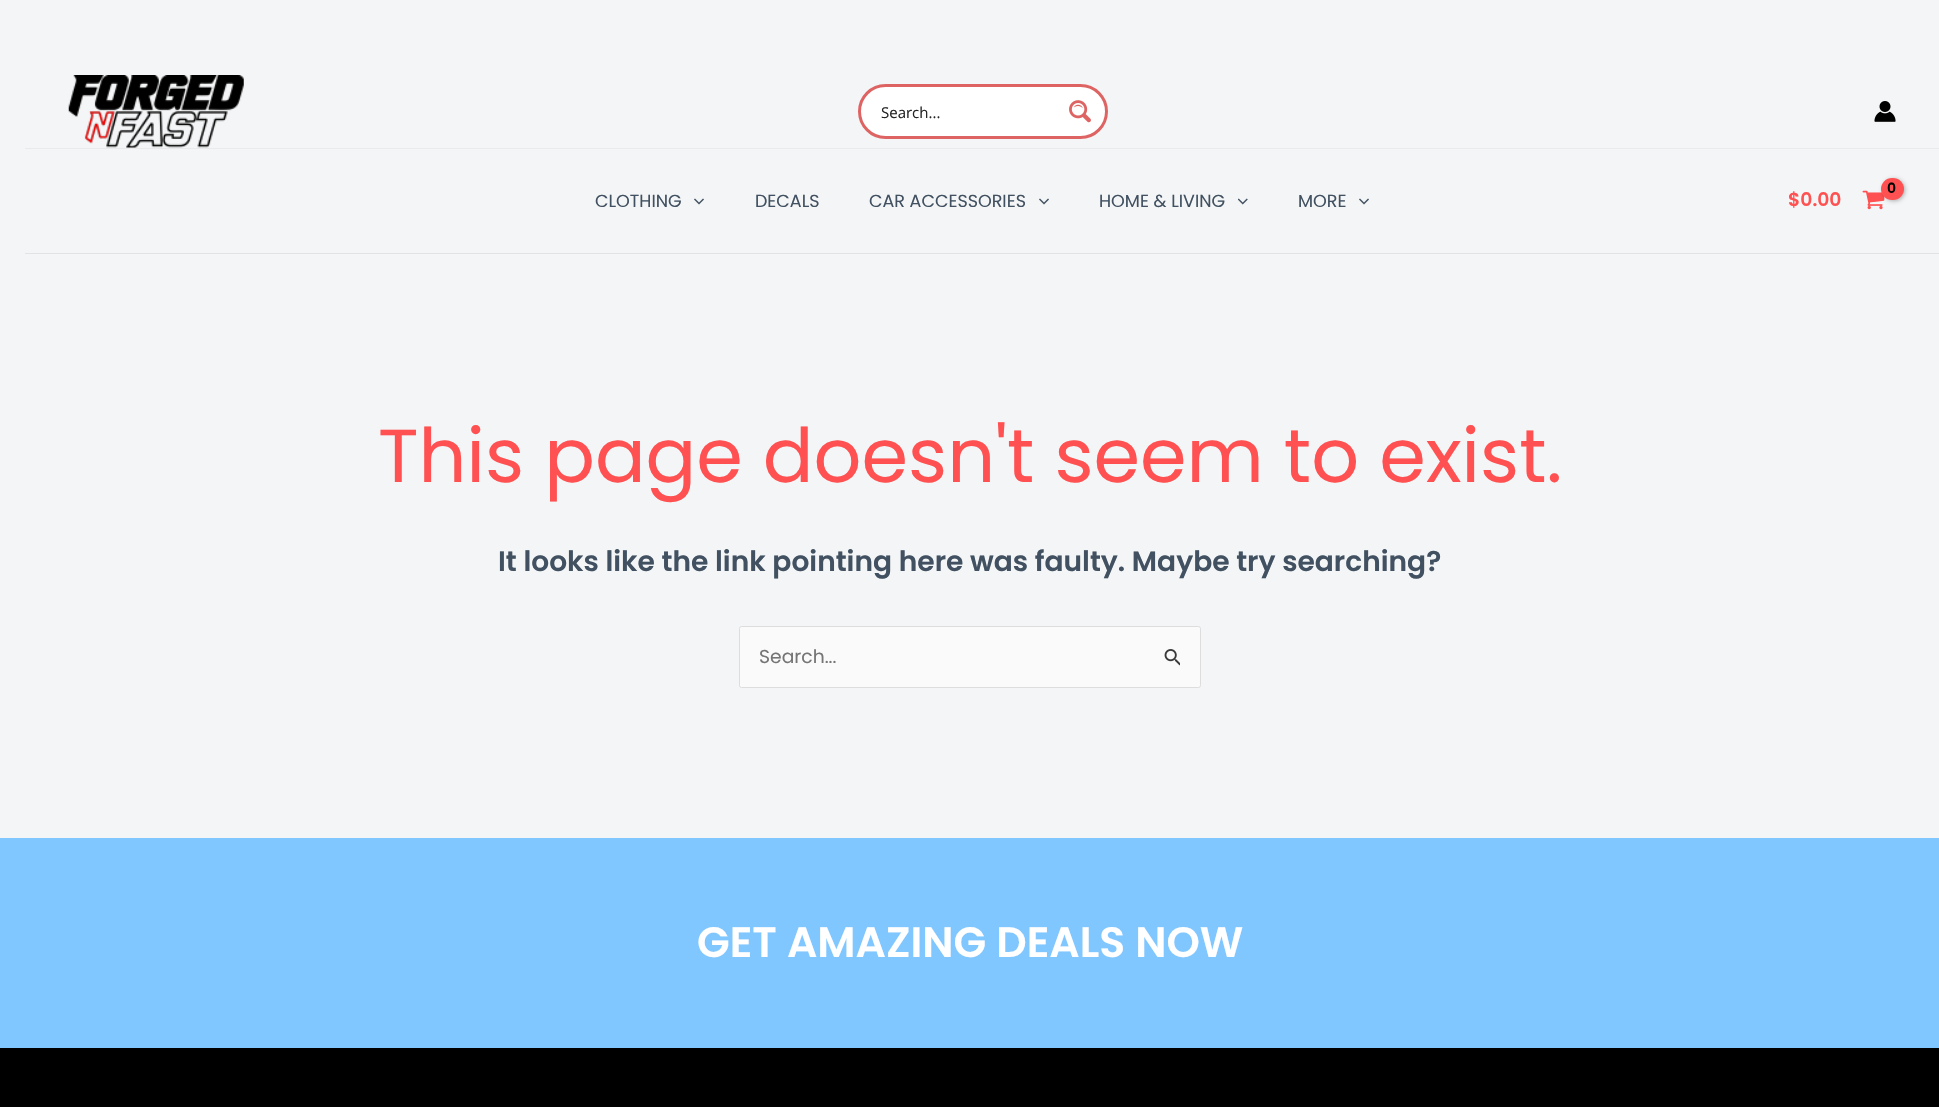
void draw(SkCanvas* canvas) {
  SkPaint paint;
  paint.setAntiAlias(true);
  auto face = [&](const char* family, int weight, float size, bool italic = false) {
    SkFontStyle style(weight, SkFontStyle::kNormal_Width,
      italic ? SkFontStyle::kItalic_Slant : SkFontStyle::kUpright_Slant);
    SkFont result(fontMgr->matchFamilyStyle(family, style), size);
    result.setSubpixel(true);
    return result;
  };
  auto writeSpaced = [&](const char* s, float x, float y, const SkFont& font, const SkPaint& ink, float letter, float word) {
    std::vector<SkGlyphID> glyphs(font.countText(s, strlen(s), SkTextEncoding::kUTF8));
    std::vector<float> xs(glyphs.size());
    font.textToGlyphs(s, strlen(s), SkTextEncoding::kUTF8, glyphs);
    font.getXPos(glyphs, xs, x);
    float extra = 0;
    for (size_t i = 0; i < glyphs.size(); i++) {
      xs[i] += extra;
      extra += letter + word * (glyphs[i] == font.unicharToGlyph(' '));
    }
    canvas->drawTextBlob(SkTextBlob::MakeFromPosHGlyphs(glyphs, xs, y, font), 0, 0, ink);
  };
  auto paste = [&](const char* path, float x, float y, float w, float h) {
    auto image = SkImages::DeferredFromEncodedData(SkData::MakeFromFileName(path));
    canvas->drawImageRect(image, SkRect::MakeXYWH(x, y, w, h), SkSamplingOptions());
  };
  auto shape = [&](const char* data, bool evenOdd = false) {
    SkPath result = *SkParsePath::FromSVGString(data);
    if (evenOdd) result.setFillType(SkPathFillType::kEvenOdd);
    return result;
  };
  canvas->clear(0xfff4f5f6);
  paint.setColor(0xffeaeaea);
  canvas->drawRect(SkRect::MakeXYWH(25, 148, 1914, 1), paint);
  paste("img/1.png", 68, 75, 176, 73);
  paint.setColor(0xffffffff);
  canvas->drawRoundRect(SkRect::MakeXYWH(859.5f, 85.5f, 247, 52), 26, 26, paint);
  paint.setStroke(true);
  paint.setStrokeWidth(3);
  paint.setColor(0xffde6464);
  canvas->drawRoundRect(SkRect::MakeXYWH(859.5f, 85.5f, 247, 52), 26, 26, paint);
  canvas->save();
  canvas->clipRect(SkRect::MakeXYWH(1063, 94, 35, 35));
  paint.setStroke(false);
  paint.setColor(0xa3ffffff);
  canvas->drawPath(shape("M939 136V86H1080C1094 86 1105 97 1105 111C1105 125 1094 136 1080 136ZM1061 95V130H1096V95Z", true), paint);
  canvas->restore();
  paste("img/2.png", 1069, 100, 22, 23);
  paste("img/3.png", 1874, 101, 22, 21);
  paint.setColor(0xffe1e3e4);
  canvas->drawRect(SkRect::MakeXYWH(25, 253, 1914, 1), paint);
  paste("img/4.png", 694, 198, 10, 7);
  paste("img/4.png", 1039, 198, 10, 7);
  paste("img/5.png", 1238, 198, 10, 7);
  paste("img/4.png", 1359, 198, 10, 7);
  paste("img/6.png", 1862, 190, 23, 20);
  paint.setColor(0x4d000000);
  paint.setMaskFilter(SkMaskFilter::MakeBlur(kNormal_SkBlurStyle, 2));
  canvas->drawRoundRect(SkRect::MakeXYWH(1883, 179, 22, 22), 11, 11, paint);
  paint.setMaskFilter(nullptr);
  paint.setColor(0xffff5151);
  canvas->drawRoundRect(SkRect::MakeXYWH(1881, 178, 23, 22), 11, 11, paint);
  paint.setColor(0xfffafafa);
  canvas->drawRoundRect(SkRect::MakeXYWH(739.5f, 626.5f, 461, 61), 2, 2, paint);
  paint.setStroke(true);
  paint.setStrokeWidth(1);
  paint.setColor(0xffdddddd);
  canvas->drawRoundRect(SkRect::MakeXYWH(739.5f, 626.5f, 461, 61), 2, 2, paint);
  paste("img/7.png", 1164, 649, 16, 17);
  paint.setStroke(false);
  paint.setColor(0xff000000);
  canvas->drawRect(SkRect::MakeXYWH(0, 1048, 1939, 59), paint);
  paint.setColor(0xff80c6ff);
  canvas->drawRect(SkRect::MakeXYWH(0, 838, 1939, 210), paint);
  auto f0 = face("Open Sans", 400, 15);
  paint.setColor(0xff262626);
  canvas->drawString("Search...", 881, 118, f0, paint);
  auto f1 = face("Poppins", 400, 17.5f);
  paint.setColor(0xff415161);
  {
    const struct { const char* s; float x, y; } items[] = {
      {"CLOTHING", 595, 207},
      {"DECALS", 755, 207},
      {"CAR ACCESSORIES", 869, 207},
      {"HOME & LIVING", 1099, 207},
      {"MORE", 1298, 207},
    };
    for (auto [s, x, y] : items) {
      canvas->drawString(s, x, y, f1, paint);
    }
  }
  auto f2 = face("Poppins", 600, 14);
  paint.setColor(0xff000000);
  writeSpaced("0", 1887, 193, f2, paint, -1, 0);
  auto f3 = face("Poppins", 600, 18.75f);
  paint.setColor(0xffff5151);
  canvas->drawString("$0.00", 1788, 206, f3, paint);
  auto f4 = face("Poppins", 400, 75);
  canvas->drawString("This page doesn't seem to exist.", 378, 482, f4, paint);
  auto f5 = face("Poppins", 600, 28.1f);
  paint.setColor(0xff415161);
  canvas->drawString("It looks like the link pointing here was faulty. Maybe try searching?", 498, 571, f5, paint);
  auto f6 = face("Poppins", 400, 18.75f);
  paint.setColor(0xff757575);
  canvas->drawString("Search...", 759, 663, f6, paint);
  auto f7 = face("Poppins", 600, 42.5f);
  paint.setColor(0xffffffff);
  canvas->drawString("GET AMAZING DEALS NOW", 697, 957, f7, paint);
}
